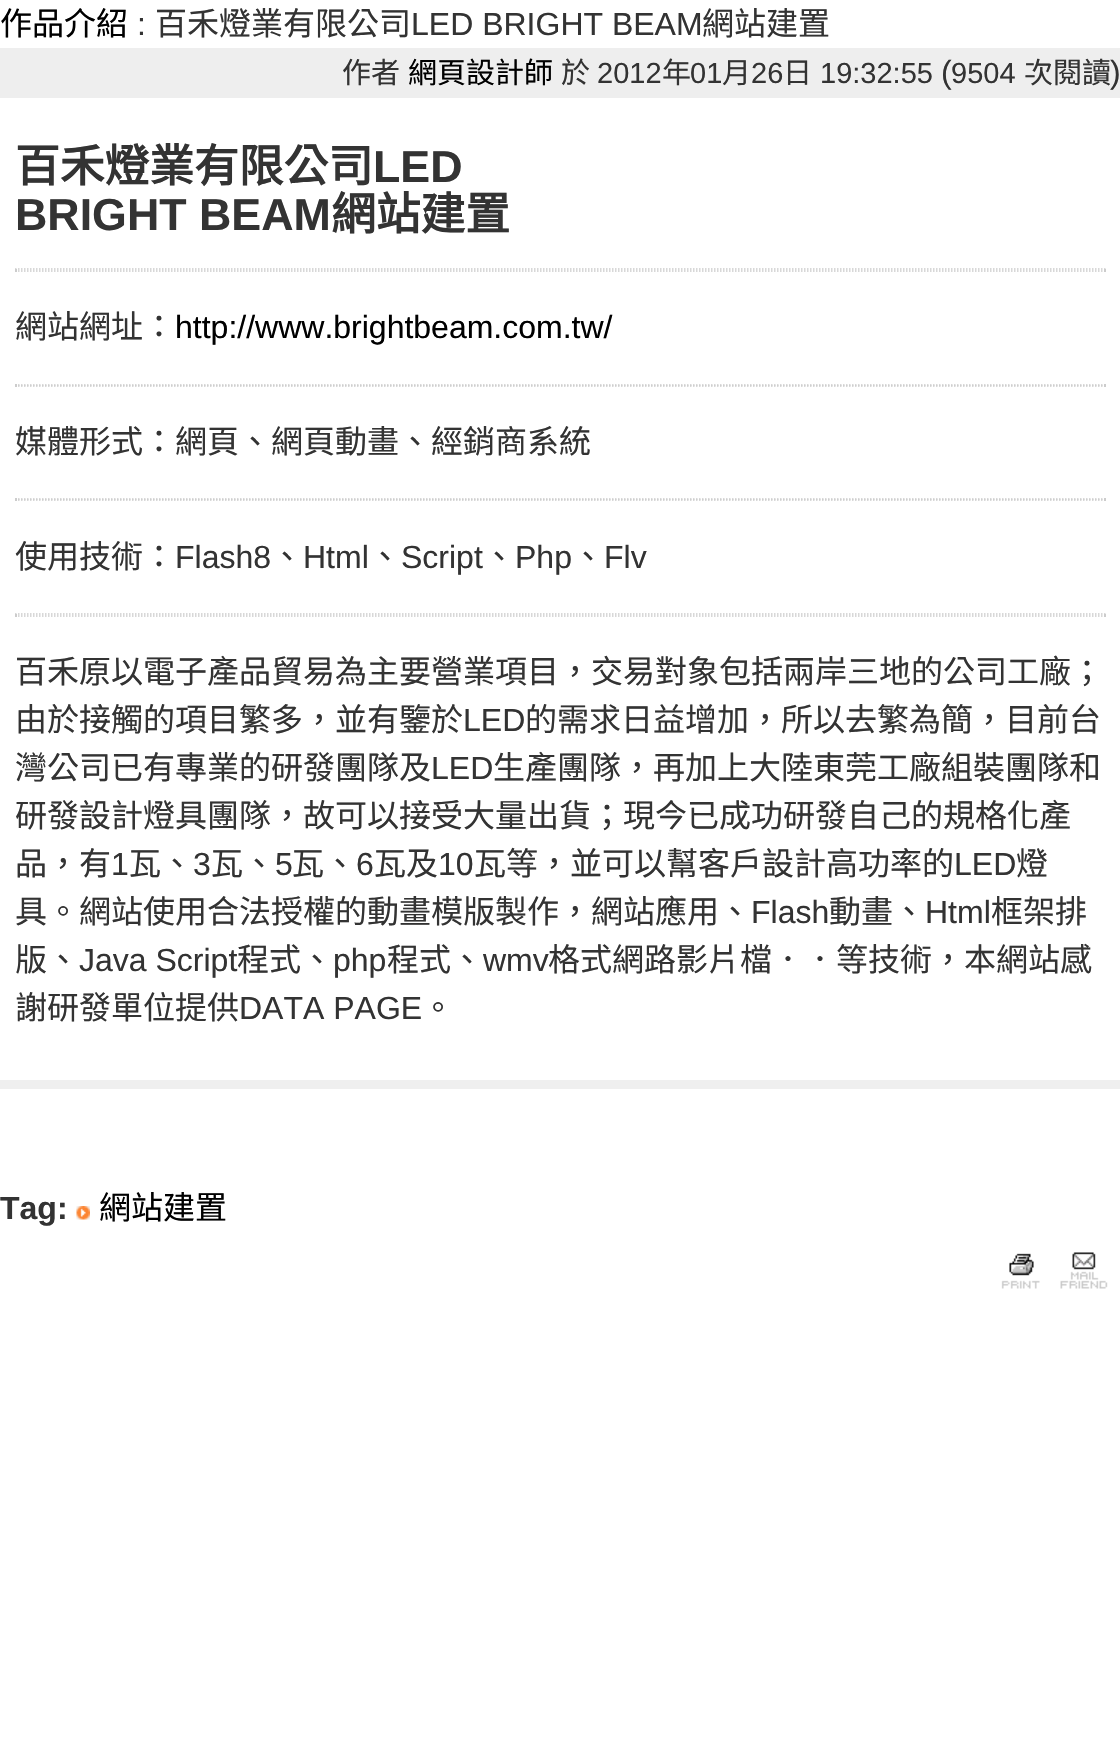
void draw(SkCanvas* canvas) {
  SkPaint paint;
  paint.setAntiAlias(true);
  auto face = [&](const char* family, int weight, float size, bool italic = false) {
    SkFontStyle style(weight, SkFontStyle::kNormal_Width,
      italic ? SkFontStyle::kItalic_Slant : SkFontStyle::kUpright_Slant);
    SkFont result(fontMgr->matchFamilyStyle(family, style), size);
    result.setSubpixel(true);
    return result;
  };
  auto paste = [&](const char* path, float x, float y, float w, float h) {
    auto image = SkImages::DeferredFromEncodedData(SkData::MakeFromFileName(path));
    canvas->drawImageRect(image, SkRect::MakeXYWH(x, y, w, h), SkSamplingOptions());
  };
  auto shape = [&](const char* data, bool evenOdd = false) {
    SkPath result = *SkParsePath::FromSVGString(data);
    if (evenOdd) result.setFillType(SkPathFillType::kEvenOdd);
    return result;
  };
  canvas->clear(0xffffffff);
  paint.setColor(0xffeeeeee);
  canvas->drawRect(SkRect::MakeXYWH(0, 48, 1120, 50), paint);
  paint.setStroke(true);
  paint.setStrokeWidth(1.5f);
  paint.setColor(0xffcccccc);
  paint.setPathEffect(SkDashPathEffect::Make({{1.5f, 1.5f}}, 0));
  canvas->drawPath(shape("M15 269H1105.5"), paint);
  paint.setPathEffect(nullptr);
  paint.setStroke(false);
  canvas->drawRect(SkRect::MakeXYWH(1104, 269, 2, 3), paint);
  paint.setStroke(true);
  paint.setPathEffect(SkDashPathEffect::Make({{1.5f, 1.5f}}, 0));
  canvas->drawPath(shape("M15 271H1105.5"), paint);
  paint.setPathEffect(nullptr);
  paint.setStroke(false);
  canvas->drawRect(SkRect::MakeXYWH(15, 269, 2, 3), paint);
  paint.setStroke(true);
  paint.setPathEffect(SkDashPathEffect::Make({{1.5f, 1.5f}}, 0));
  canvas->drawPath(shape("M15 385H1105.5"), paint);
  paint.setPathEffect(nullptr);
  paint.setStroke(false);
  canvas->drawRect(SkRect::MakeXYWH(1104, 384, 2, 3), paint);
  paint.setStroke(true);
  paint.setPathEffect(SkDashPathEffect::Make({{1.5f, 1.5f}}, 0));
  canvas->drawPath(shape("M15 386H1105.5"), paint);
  paint.setPathEffect(nullptr);
  paint.setStroke(false);
  canvas->drawRect(SkRect::MakeXYWH(15, 384, 2, 3), paint);
  paint.setStroke(true);
  paint.setPathEffect(SkDashPathEffect::Make({{1.5f, 1.5f}}, 0));
  canvas->drawPath(shape("M15 499H1105.5"), paint);
  paint.setPathEffect(nullptr);
  paint.setStroke(false);
  canvas->drawRect(SkRect::MakeXYWH(1104, 498, 2, 3), paint);
  paint.setStroke(true);
  paint.setPathEffect(SkDashPathEffect::Make({{1.5f, 1.5f}}, 0));
  canvas->drawPath(shape("M15 500H1105.5"), paint);
  paint.setPathEffect(nullptr);
  paint.setStroke(false);
  canvas->drawRect(SkRect::MakeXYWH(15, 498, 2, 3), paint);
  paint.setStroke(true);
  paint.setPathEffect(SkDashPathEffect::Make({{1.5f, 1.5f}}, 0));
  canvas->drawPath(shape("M15 614H1105.5"), paint);
  paint.setPathEffect(nullptr);
  paint.setStroke(false);
  canvas->drawRect(SkRect::MakeXYWH(1104, 614, 2, 3), paint);
  paint.setStroke(true);
  paint.setPathEffect(SkDashPathEffect::Make({{1.5f, 1.5f}}, 0));
  canvas->drawPath(shape("M15 616H1105.5"), paint);
  paint.setPathEffect(nullptr);
  paint.setStroke(false);
  canvas->drawRect(SkRect::MakeXYWH(15, 614, 2, 3), paint);
  paint.setColor(0xffefefef);
  canvas->drawRect(SkRect::MakeXYWH(0, 1080, 1120, 9), paint);
  paste("img/1.png", 76, 1206, 14, 14);
  paste("img/2.png", 1001, 1253, 39, 36);
  paste("img/3.png", 1060, 1252, 48, 37);
  auto f0 = face("Noto Sans CJK TC", 400, 32);
  paint.setColor(0xff000000);
  canvas->drawString("作品介紹", 0, 35, f0, paint);
  auto f1 = face("Liberation Sans", 400, 32);
  paint.setColor(0xff333333);
  canvas->drawString(":", 137, 35, f1, paint);
  canvas->drawString("百禾燈業有限公司", 155, 35, f0, paint);
  canvas->drawString("LED BRIGHT BEAM", 411, 35, f1, paint);
  canvas->drawString("網站建置", 702, 35, f0, paint);
  auto f2 = face("Noto Sans CJK TC", 400, 29);
  canvas->drawString("作者", 342, 83, f2, paint);
  paint.setColor(0xff000000);
  canvas->drawString("網頁設計師", 408, 83, f2, paint);
  paint.setColor(0xff333333);
  canvas->drawString("於", 561, 83, f2, paint);
  auto f3 = face("Liberation Sans", 400, 29);
  canvas->drawString("2012", 597, 83, f3, paint);
  canvas->drawString("年", 662, 83, f2, paint);
  canvas->drawString("01", 690, 83, f3, paint);
  canvas->drawString("月", 722, 83, f2, paint);
  canvas->drawString("26", 751, 83, f3, paint);
  canvas->drawString("日", 783, 83, f2, paint);
  canvas->drawString("19:32:55", 820, 83, f3, paint);
  canvas->drawString("(", 941, 83, f1, paint);
  canvas->drawString("9504", 951, 83, f3, paint);
  canvas->drawString("次閱讀", 1024, 83, f2, paint);
  canvas->drawString(")", 1110, 83, f1, paint);
  auto f4 = face("Noto Sans CJK TC", 700, 44.75f);
  canvas->drawString("百禾燈業有限公司", 15, 182, f4, paint);
  auto f5 = face("Liberation Sans", 700, 44.75f);
  canvas->drawString("LED", 373, 182, f5, paint);
  canvas->drawString("BRIGHT BEAM", 15, 230, f5, paint);
  canvas->drawString("網站建置", 331, 230, f4, paint);
  canvas->drawString("網站網址：", 15, 338, f0, paint);
  paint.setColor(0xff000000);
  canvas->drawString("http://www.brightbeam.com.tw/", 175, 338, f1, paint);
  paint.setColor(0xff333333);
  canvas->drawString("媒體形式：網頁、網頁動畫、經銷商系統", 15, 453, f0, paint);
  canvas->drawString("使用技術：", 15, 568, f0, paint);
  canvas->drawString("Flash8", 175, 568, f1, paint);
  canvas->drawString("、", 271, 568, f0, paint);
  canvas->drawString("Html", 303, 568, f1, paint);
  canvas->drawString("、", 369, 568, f0, paint);
  canvas->drawString("Script", 401, 568, f1, paint);
  canvas->drawString("、", 483, 568, f0, paint);
  canvas->drawString("Php", 515, 568, f1, paint);
  canvas->drawString("、", 572, 568, f0, paint);
  canvas->drawString("Flv", 604, 568, f1, paint);
  canvas->drawString("百禾原以電子產品貿易為主要營業項目，交易對象包括兩岸三地的公司工廠；", 15, 683, f0, paint);
  canvas->drawString("由於接觸的項目繁多，並有鑒於", 15, 731, f0, paint);
  canvas->drawString("LED", 463, 731, f1, paint);
  canvas->drawString("的需求日益增加，所以去繁為簡，目前台", 525, 731, f0, paint);
  canvas->drawString("灣公司已有專業的研發團隊及", 15, 779, f0, paint);
  canvas->drawString("LED", 431, 779, f1, paint);
  {
    const struct { const char* s; float x, y; } items[] = {
      {"生產團隊，再加上大陸東莞工廠組裝團隊和", 493, 779},
      {"研發設計燈具團隊，故可以接受大量出貨；現今已成功研發自己的規格化產", 15, 827},
      {"品，有", 15, 875},
    };
    for (auto [s, x, y] : items) {
      canvas->drawString(s, x, y, f0, paint);
    }
  }
  canvas->drawString("1", 111, 875, f1, paint);
  canvas->drawString("瓦、", 129, 875, f0, paint);
  canvas->drawString("3", 193, 875, f1, paint);
  canvas->drawString("瓦、", 211, 875, f0, paint);
  canvas->drawString("5", 275, 875, f1, paint);
  canvas->drawString("瓦、", 292, 875, f0, paint);
  canvas->drawString("6", 356, 875, f1, paint);
  canvas->drawString("瓦及", 374, 875, f0, paint);
  canvas->drawString("10", 438, 875, f1, paint);
  canvas->drawString("瓦等，並可以幫客戶設計高功率的", 474, 875, f0, paint);
  canvas->drawString("LED", 954, 875, f1, paint);
  canvas->drawString("燈", 1016, 875, f0, paint);
  canvas->drawString("具。網站使用合法授權的動畫模版製作，網站應用、", 15, 923, f0, paint);
  canvas->drawString("Flash", 751, 923, f1, paint);
  canvas->drawString("動畫、", 829, 923, f0, paint);
  canvas->drawString("Html", 925, 923, f1, paint);
  canvas->drawString("框架排", 991, 923, f0, paint);
  canvas->drawString("版、", 15, 971, f0, paint);
  canvas->drawString("Java Script", 79, 971, f1, paint);
  canvas->drawString("程式、", 237, 971, f0, paint);
  canvas->drawString("php", 333, 971, f1, paint);
  canvas->drawString("程式、", 387, 971, f0, paint);
  canvas->drawString("wmv", 483, 971, f1, paint);
  canvas->drawString("格式網路影片檔．．等技術，本網站感", 548, 971, f0, paint);
  canvas->drawString("謝研發單位提供", 15, 1019, f0, paint);
  canvas->drawString("DATA PAGE", 239, 1019, f1, paint);
  canvas->drawString("。", 422, 1019, f0, paint);
  auto f6 = face("Liberation Sans", 700, 32);
  canvas->drawString("Tag:", 0, 1219, f6, paint);
  paint.setColor(0xff000000);
  canvas->drawString("網站建置", 99, 1219, f0, paint);
}
